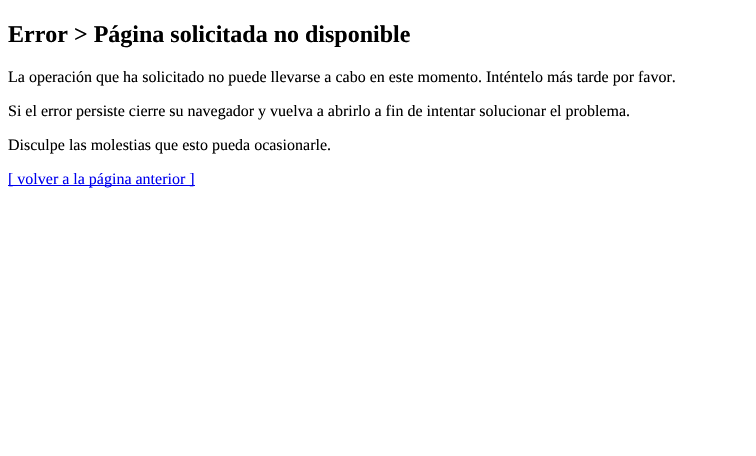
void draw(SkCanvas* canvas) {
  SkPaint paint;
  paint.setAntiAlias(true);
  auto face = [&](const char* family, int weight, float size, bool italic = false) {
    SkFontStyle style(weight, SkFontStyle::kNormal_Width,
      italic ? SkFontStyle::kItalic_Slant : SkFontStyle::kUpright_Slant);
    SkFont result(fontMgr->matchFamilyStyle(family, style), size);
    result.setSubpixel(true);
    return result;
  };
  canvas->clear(0xffffffff);
  paint.setColor(0xff0000ee);
  canvas->drawRect(SkRect::MakeXYWH(8, 185, 187, 1), paint);
  auto f0 = face("Liberation Serif", 700, 24);
  paint.setColor(0xff000000);
  canvas->drawString("Error > Página solicitada no disponible", 8, 42, f0, paint);
  auto f1 = face("Liberation Serif", 400, 16);
  {
    const struct { const char* s; float x, y; } items[] = {
      {"La operación que ha solicitado no puede llevarse a cabo en este momento. Inténtelo más tarde por favor.", 8, 82},
      {"Si el error persiste cierre su navegador y vuelva a abrirlo a fin de intentar solucionar el problema.", 8, 116},
      {"Disculpe las molestias que esto pueda ocasionarle.", 8, 150},
    };
    for (auto [s, x, y] : items) {
      canvas->drawString(s, x, y, f1, paint);
    }
  }
  paint.setColor(0xff0000ee);
  canvas->drawString("[ volver a la página anterior ]", 8, 184, f1, paint);
}
